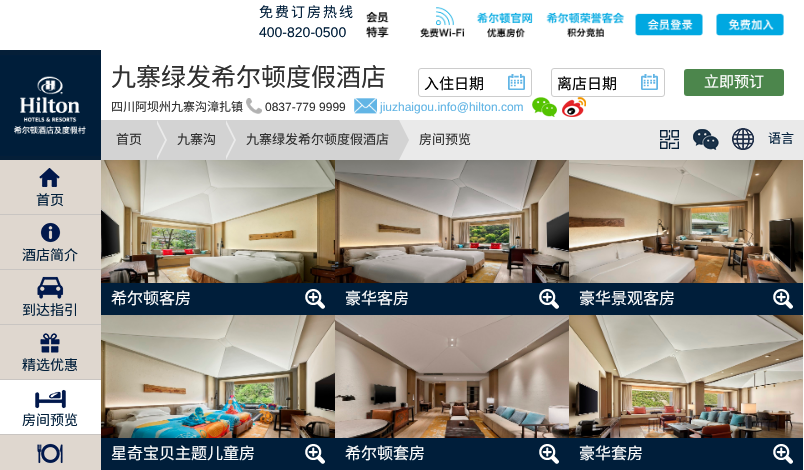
void draw(SkCanvas* canvas) {
  SkPaint paint;
  paint.setAntiAlias(true);
  auto face = [&](const char* family, int weight, float size, bool italic = false) {
    SkFontStyle style(weight, SkFontStyle::kNormal_Width,
      italic ? SkFontStyle::kItalic_Slant : SkFontStyle::kUpright_Slant);
    SkFont result(fontMgr->matchFamilyStyle(family, style), size);
    result.setSubpixel(true);
    return result;
  };
  auto writeSpaced = [&](const char* s, float x, float y, const SkFont& font, const SkPaint& ink, float letter, float word) {
    std::vector<SkGlyphID> glyphs(font.countText(s, strlen(s), SkTextEncoding::kUTF8));
    std::vector<float> xs(glyphs.size());
    font.textToGlyphs(s, strlen(s), SkTextEncoding::kUTF8, glyphs);
    font.getXPos(glyphs, xs, x);
    float extra = 0;
    for (size_t i = 0; i < glyphs.size(); i++) {
      xs[i] += extra;
      extra += letter + word * (glyphs[i] == font.unicharToGlyph(' '));
    }
    canvas->drawTextBlob(SkTextBlob::MakeFromPosHGlyphs(glyphs, xs, y, font), 0, 0, ink);
  };
  auto paste = [&](const char* path, float x, float y, float w, float h) {
    auto image = SkImages::DeferredFromEncodedData(SkData::MakeFromFileName(path));
    canvas->drawImageRect(image, SkRect::MakeXYWH(x, y, w, h), SkSamplingOptions());
  };
  auto shape = [&](const char* data, bool evenOdd = false) {
    SkPath result = *SkParsePath::FromSVGString(data);
    if (evenOdd) result.setFillType(SkPathFillType::kEvenOdd);
    return result;
  };
  canvas->clear(0xffffffff);
  paste("img/1.png", 366, 7, 167, 31);
  paste("img/2.png", 546, 12, 79, 25);
  paste("img/3.png", 635, 13, 68, 23);
  paste("img/4.png", 716, 13, 68, 23);
  paint.setColor(0xff051f38);
  canvas->drawRect(SkRect::MakeXYWH(0, 50, 101, 110), paint);
  paste("img/5.png", 0, 55, 101, 101);
  paste("img/6.png", 246, 98, 16, 16);
  paste("img/7.png", 354, 98, 23, 16);
  paste("img/8.png", 532, 97, 25, 20);
  paste("img/9.png", 562, 97, 24, 20);
  paint.setStroke(true);
  paint.setStrokeWidth(1);
  paint.setColor(0xffcccccc);
  canvas->drawRoundRect(SkRect::MakeXYWH(418.5f, 68.5f, 113, 28), 2.5f, 2.5f, paint);
  paste("img/10.png", 508, 74, 17, 16);
  canvas->drawRoundRect(SkRect::MakeXYWH(551.5f, 68.5f, 113, 28), 2.5f, 2.5f, paint);
  paste("img/10.png", 641, 74, 17, 16);
  paint.setStroke(false);
  paint.setColor(0xff4c864c);
  canvas->drawRoundRect(SkRect::MakeXYWH(684, 69, 100, 27), 3, 3, paint);
  paint.setColor(0xffeaeaea);
  canvas->drawRect(SkRect::MakeXYWH(399, 120, 405, 40), paint);
  paint.setColor(0xffd3d3d3);
  canvas->drawRect(SkRect::MakeXYWH(101, 120, 298, 40), paint);
  paint.setColor(0xffeaeaea);
  canvas->drawPath(shape("M157 160V120L167 140Z"), paint);
  paint.setColor(0xffd3d3d3);
  canvas->drawPath(shape("M155 160V120L165 140Z"), paint);
  paint.setColor(0xffeaeaea);
  canvas->drawPath(shape("M226 160V120L236 140Z"), paint);
  paint.setColor(0xffd3d3d3);
  canvas->drawPath(shape("M224 160V120L234 140Z"), paint);
  canvas->drawPath(shape("M399 160V120L409 140Z"), paint);
  paste("img/11.png", 660, 130, 19, 19);
  paste("img/12.png", 693, 129, 26, 21);
  paste("img/13.png", 732, 128, 22, 22);
  paint.setColor(0xffdfd7cf);
  canvas->drawRect(SkRect::MakeXYWH(0, 160, 101, 310), paint);
  paint.setColor(0xffc9c5c2);
  canvas->drawRect(SkRect::MakeXYWH(0, 214, 101, 1), paint);
  paste("img/14.png", 39, 168, 21, 19);
  canvas->drawRect(SkRect::MakeXYWH(0, 269, 101, 1), paint);
  paste("img/15.png", 40, 222, 21, 21);
  canvas->drawRect(SkRect::MakeXYWH(0, 324, 101, 1), paint);
  paste("img/16.png", 37, 276, 27, 23);
  canvas->drawRect(SkRect::MakeXYWH(0, 379, 101, 1), paint);
  paste("img/17.png", 40, 333, 20, 20);
  canvas->drawRect(SkRect::MakeXYWH(0, 434, 101, 1), paint);
  paint.setColor(0xffffffff);
  canvas->drawRect(SkRect::MakeXYWH(0, 380, 101, 54), paint);
  paste("img/18.png", 35, 389, 31, 20);
  paste("img/19.png", 37, 443, 26, 21);
  paste("img/20.png", 101, 160, 234, 123);
  paint.setColor(0xff001e3a);
  canvas->drawRect(SkRect::MakeXYWH(101, 283, 702, 32), paint);
  paste("img/21.png", 305, 289, 20, 20);
  paste("img/22.png", 335, 160, 234, 123);
  paste("img/21.png", 539, 289, 20, 20);
  paste("img/23.png", 569, 160, 234, 123);
  paste("img/21.png", 773, 289, 20, 20);
  paste("img/24.png", 101, 315, 234, 123);
  canvas->drawRect(SkRect::MakeXYWH(101, 438, 702, 32), paint);
  paste("img/21.png", 305, 444, 20, 20);
  paste("img/25.png", 335, 315, 234, 123);
  paste("img/21.png", 539, 444, 20, 20);
  paste("img/26.png", 569, 315, 234, 123);
  paste("img/21.png", 773, 444, 20, 20);
  auto f0 = face("Noto Sans CJK SC", 400, 14);
  writeSpaced("免费订房热线", 259, 17, f0, paint, 2, 0);
  auto f1 = face("Liberation Sans", 400, 14);
  canvas->drawString("400-820-0500", 259, 37, f1, paint);
  auto f2 = face("Noto Sans CJK SC", 400, 25);
  paint.setColor(0xff303030);
  canvas->drawString("九寨绿发希尔顿度假酒店", 111, 86, f2, paint);
  auto f3 = face("Noto Sans CJK SC", 400, 12);
  canvas->drawString("四川阿坝州九寨沟漳扎镇", 111, 111, f3, paint);
  auto f4 = face("Liberation Sans", 400, 12);
  canvas->drawString("0837-779 9999", 265, 111, f4, paint);
  paint.setColor(0xff62b5e5);
  canvas->drawString("jiuzhaigou.info@hilton.com", 380, 111, f4, paint);
  auto f5 = face("Noto Sans CJK SC", 400, 15);
  paint.setColor(0xff000000);
  canvas->drawString("入住日期", 424, 89, f5, paint);
  canvas->drawString("离店日期", 557, 89, f5, paint);
  paint.setColor(0xffffffff);
  canvas->drawString("立即预订", 704, 87, f5, paint);
  auto f6 = face("Noto Sans CJK SC", 400, 13);
  paint.setColor(0xff303030);
  {
    const struct { const char* s; float x, y; } items[] = {
      {"首页", 116, 144},
      {"九寨沟", 177, 144},
      {"九寨绿发希尔顿度假酒店", 246, 144},
      {"房间预览", 419, 144},
    };
    for (auto [s, x, y] : items) {
      canvas->drawString(s, x, y, f6, paint);
    }
  }
  paint.setColor(0xff001e3a);
  canvas->drawString("语言", 768, 143, f6, paint);
  {
    const struct { const char* s; float x, y; } items[] = {
      {"首页", 36, 205},
      {"酒店简介", 22, 260},
      {"到达指引", 22, 315},
      {"精选优惠", 22, 370},
      {"房间预览", 22, 425},
    };
    for (auto [s, x, y] : items) {
      canvas->drawString(s, x, y, f0, paint);
    }
  }
  auto f7 = face("Noto Sans CJK SC", 400, 16);
  paint.setColor(0xffffffff);
  {
    const struct { const char* s; float x, y; } items[] = {
      {"希尔顿客房", 111, 304},
      {"豪华客房", 345, 304},
      {"豪华景观客房", 579, 304},
      {"星奇宝贝主题儿童房", 111, 459},
      {"希尔顿套房", 345, 459},
      {"豪华套房", 579, 459},
    };
    for (auto [s, x, y] : items) {
      canvas->drawString(s, x, y, f7, paint);
    }
  }
}
